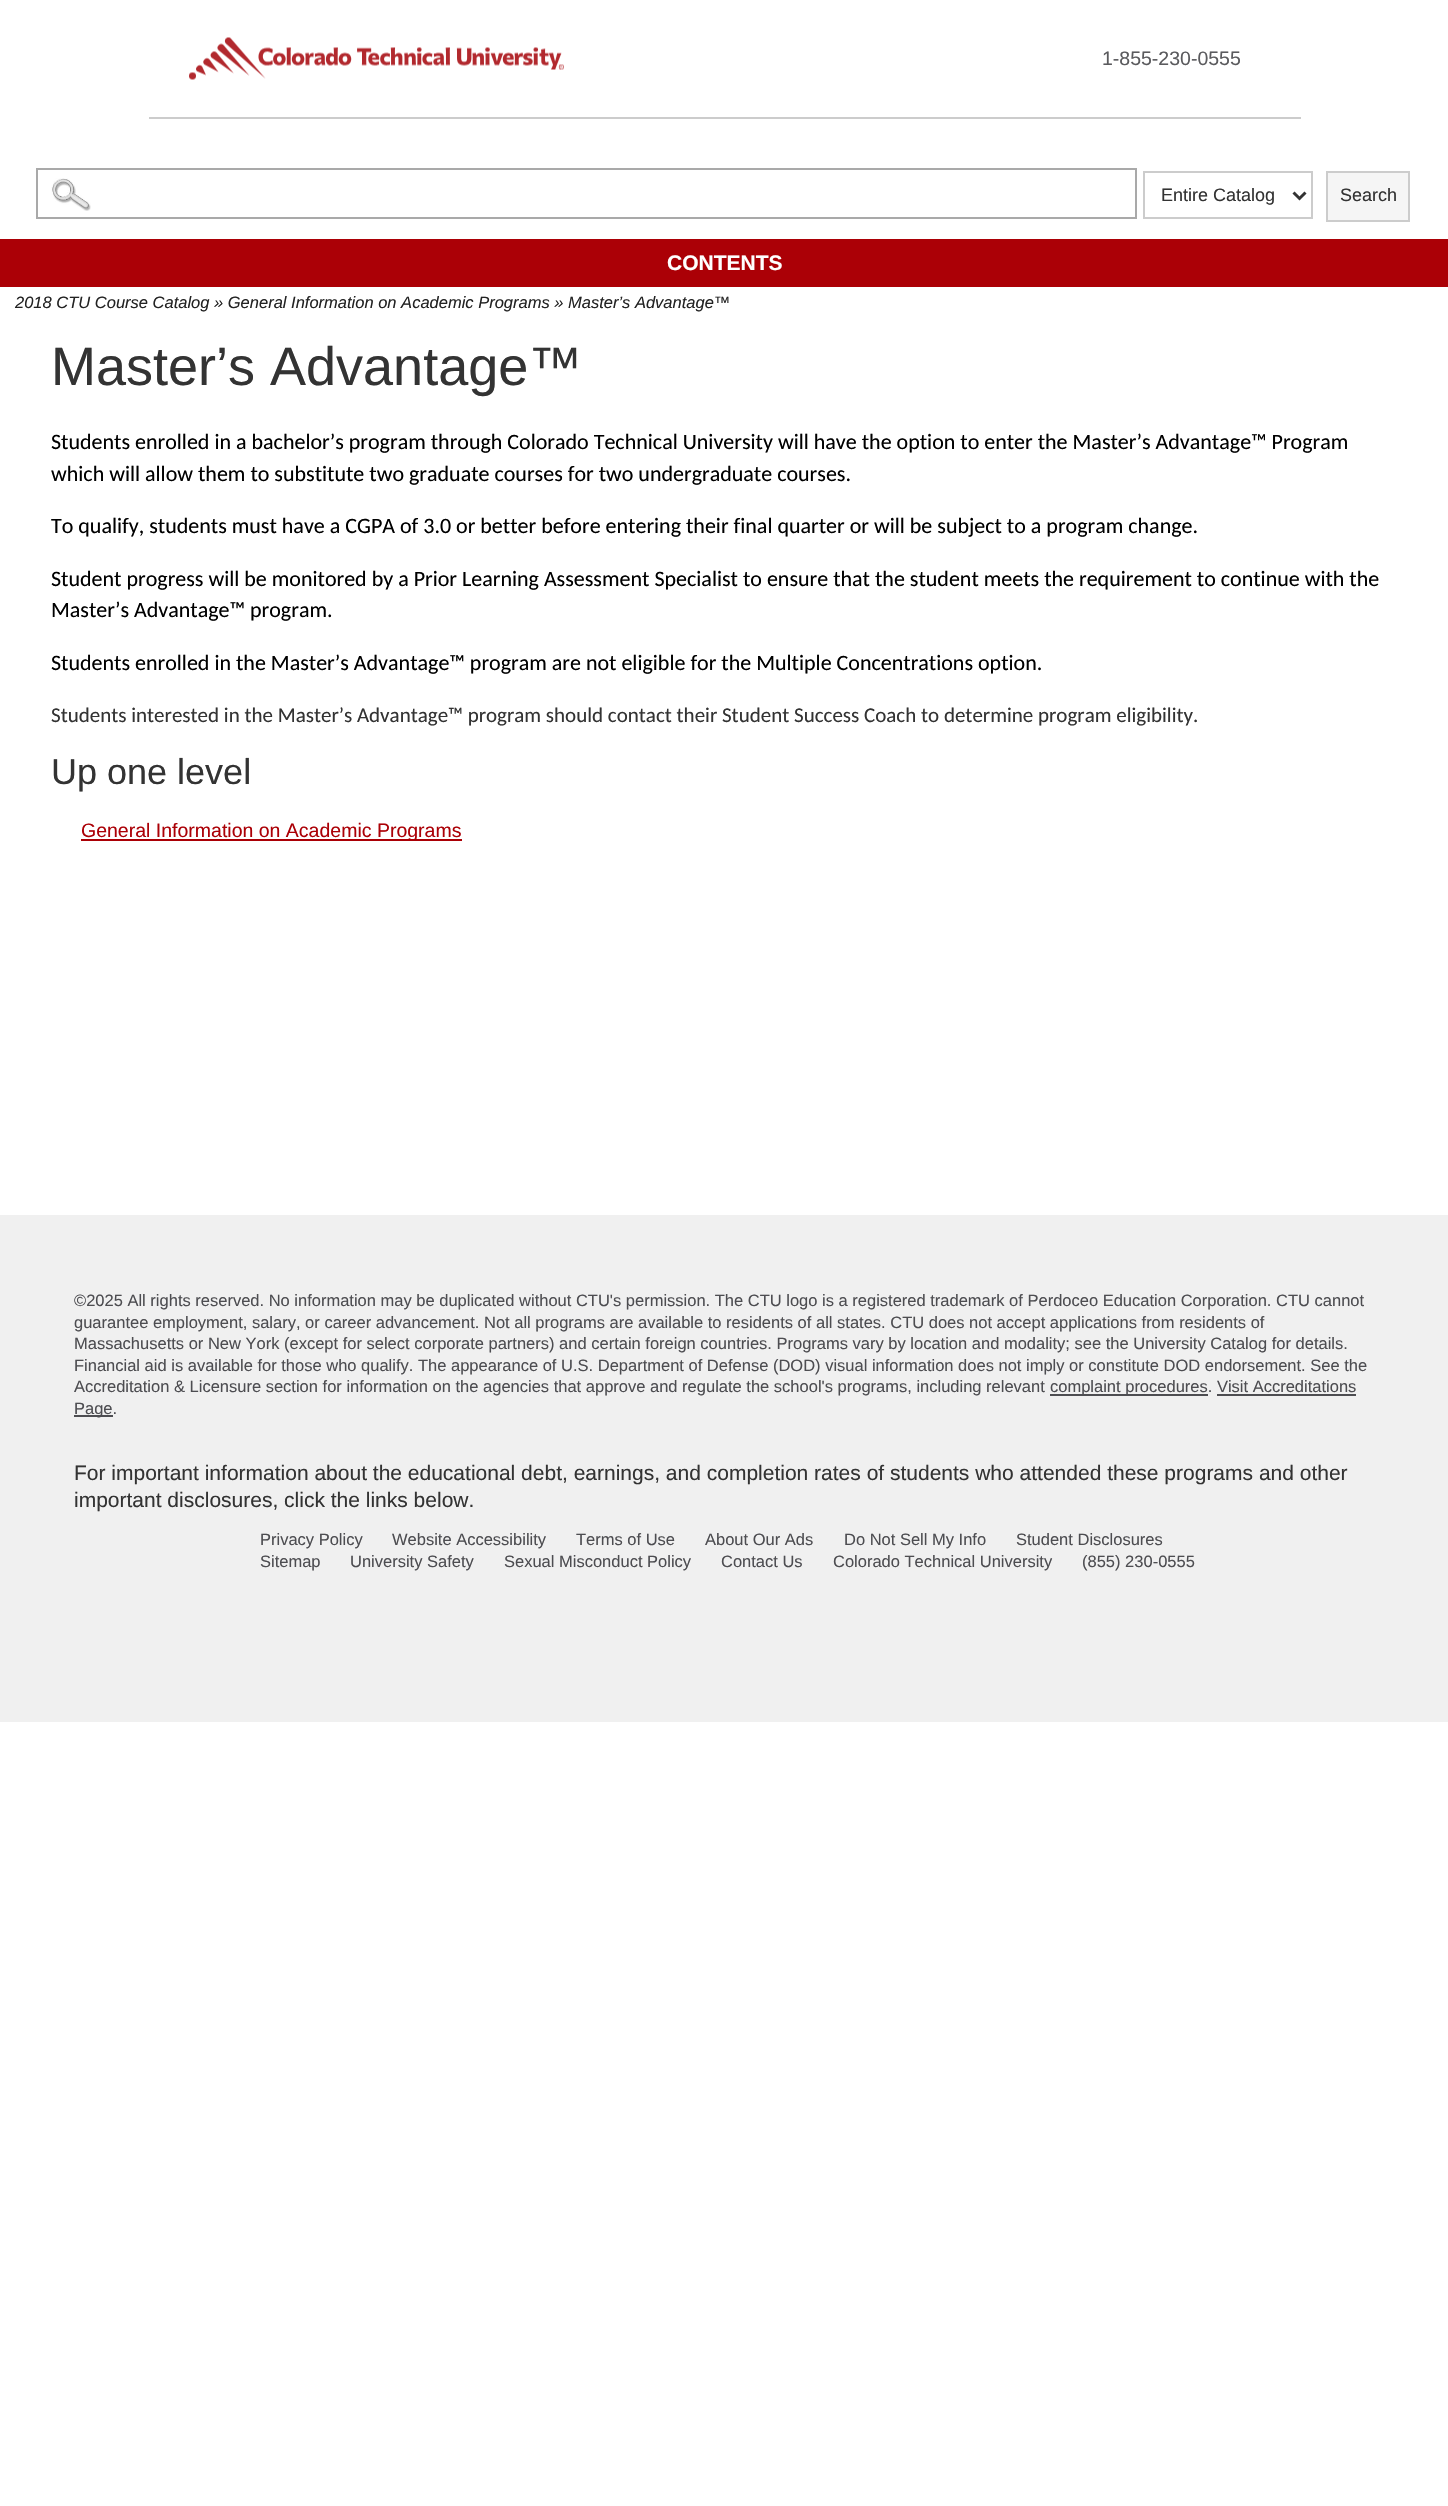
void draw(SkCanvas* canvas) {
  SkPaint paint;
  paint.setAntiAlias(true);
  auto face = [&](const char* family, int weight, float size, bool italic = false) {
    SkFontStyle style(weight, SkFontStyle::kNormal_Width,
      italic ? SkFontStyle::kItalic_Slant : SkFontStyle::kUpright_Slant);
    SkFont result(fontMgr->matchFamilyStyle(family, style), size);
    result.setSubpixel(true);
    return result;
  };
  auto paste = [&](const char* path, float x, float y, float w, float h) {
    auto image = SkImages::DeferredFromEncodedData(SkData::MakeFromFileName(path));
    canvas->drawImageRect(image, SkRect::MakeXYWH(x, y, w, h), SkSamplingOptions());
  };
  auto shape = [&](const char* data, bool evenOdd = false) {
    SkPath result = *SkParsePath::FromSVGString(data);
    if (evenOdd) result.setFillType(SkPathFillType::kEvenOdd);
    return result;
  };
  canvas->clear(0xffffffff);
  paint.setColor(0xffcccccc);
  canvas->drawRect(SkRect::MakeXYWH(149, 117, 1152, 2), paint);
  paste("img/1.png", 189, 37, 375, 43);
  paste("img/2.png", 51, 178, 40, 33);
  paint.setStroke(true);
  paint.setStrokeWidth(2);
  paint.setColor(0xffa9a9a9);
  canvas->drawRect(SkRect::MakeXYWH(37, 169, 1099, 49), paint);
  paint.setColor(0xffcccccc);
  canvas->drawRect(SkRect::MakeXYWH(1144, 172, 168, 46), paint);
  paint.setStrokeWidth(3);
  paint.setColor(0xff333333);
  canvas->drawPath(shape("M1293.5 192.5L1299.5 198.5L1305.5 192.5"), paint);
  paint.setStroke(false);
  paint.setColor(0xfff5f5f5);
  canvas->drawRect(SkRect::MakeXYWH(1327, 172, 82, 49), paint);
  paint.setStroke(true);
  paint.setStrokeWidth(2);
  paint.setColor(0xffcccccc);
  canvas->drawRect(SkRect::MakeXYWH(1327, 172, 82, 49), paint);
  paint.setStroke(false);
  {
    const struct { float x, y, w, h; SkColor color; } items[] = {
      {0, 239, 1448, 48, 0xffab0006},
      {81, 839, 381, 2, 0xffab0006},
      {0, 1215, 1448, 507, 0xfff0f0f0},
      {1050, 1394, 158, 2, 0xff4d4d51},
      {1217, 1394, 139, 2, 0xff4d4d51},
      {74, 1415, 39, 2, 0xff4d4d51},
    };
    for (auto [x, y, w, h, color] : items) {
      paint.setColor(color);
      canvas->drawRect(SkRect::MakeXYWH(x, y, w, h), paint);
    }
  }
  auto f0 = face("Liberation Sans", 400, 19.5f);
  paint.setColor(0xff5b5b5e);
  canvas->drawString("1-855-230-0555", 1102, 65, f0, paint);
  auto f1 = face("Liberation Sans", 400, 18);
  paint.setColor(0xff333333);
  canvas->drawString("Entire Catalog", 1161, 201, f1, paint);
  canvas->drawString("Search", 1340, 201, f1, paint);
  auto f2 = face("Liberation Sans", 700, 21);
  paint.setColor(0xffffffff);
  canvas->drawString("CONTENTS", 667, 270, f2, paint);
  auto f3 = face("Liberation Sans", 400, 16.5f, true);
  paint.setColor(0xff232323);
  canvas->drawString("2018 CTU Course Catalog » General Information on Academic Programs » Master’s Advantage™", 15, 308, f3, paint);
  auto f4 = face("Liberation Sans", 400, 54);
  paint.setColor(0xff333333);
  canvas->drawString("Master’s Advantage™", 51, 385, f4, paint);
  auto f5 = face("Carlito", 400, 22);
  paint.setColor(0xff000000);
  {
    const struct { const char* s; float x, y; } items[] = {
      {"Students enrolled in a bachelor’s program through Colorado Technical University will have the option to enter the Master’s Advantage™ Program", 51, 449},
      {"which will allow them to substitute two graduate courses for two undergraduate courses.", 51, 481},
      {"To qualify, students must have a CGPA of 3.0 or better before entering their final quarter or will be subject to a program change.", 51, 533},
      {"Student progress will be monitored by a Prior Learning Assessment Specialist to ensure that the student meets the requirement to continue with the", 51, 586},
      {"Master’s Advantage™ program.", 51, 617},
      {"Students enrolled in the Master’s Advantage™ program are not eligible for the Multiple Concentrations option.", 51, 670},
    };
    for (auto [s, x, y] : items) {
      canvas->drawString(s, x, y, f5, paint);
    }
  }
  auto f6 = face("Carlito", 400, 21);
  paint.setColor(0xff333333);
  canvas->drawString("Students interested in the Master’s Advantage™ program should contact their Student Success Coach to determine program eligibility.", 51, 722, f6, paint);
  auto f7 = face("Liberation Sans", 400, 36);
  canvas->drawString("Up one level", 51, 784, f7, paint);
  paint.setColor(0xffab0006);
  canvas->drawString("General Information on Academic Programs", 81, 837, f0, paint);
  auto f8 = face("Liberation Sans", 400, 16.5f);
  paint.setColor(0xff4d4d51);
  {
    const struct { const char* s; float x, y; } items[] = {
      {"©2025 All rights reserved. No information may be duplicated without CTU's permission. The CTU logo is a registered trademark of Perdoceo Education Corporation. CTU cannot", 74, 1306},
      {"guarantee employment, salary, or career advancement. Not all programs are available to residents of all states. CTU does not accept applications from residents of", 74, 1328},
      {"Massachusetts or New York (except for select corporate partners) and certain foreign countries. Programs vary by location and modality; see the University Catalog for details.", 74, 1349},
      {"Financial aid is available for those who qualify. The appearance of U.S. Department of Defense (DOD) visual information does not imply or constitute DOD endorsement. See the", 74, 1371},
      {"Accreditation & Licensure section for information on the agencies that approve and regulate the school's programs, including relevant", 74, 1392},
      {"complaint procedures. Visit Accreditations", 1050, 1392},
      {"Page.", 74, 1414},
    };
    for (auto [s, x, y] : items) {
      canvas->drawString(s, x, y, f8, paint);
    }
  }
  auto f9 = face("Liberation Sans", 400, 21);
  paint.setColor(0xff333333);
  canvas->drawString("For important information about the educational debt, earnings, and completion rates of students who attended these programs and other", 74, 1480, f9, paint);
  canvas->drawString("important disclosures, click the links below.", 74, 1507, f9, paint);
  paint.setColor(0xff4d4d51);
  {
    const struct { const char* s; float x, y; } items[] = {
      {"Privacy Policy", 260, 1545},
      {"Website Accessibility", 392, 1545},
      {"Terms of Use", 576, 1545},
      {"About Our Ads", 705, 1545},
      {"Do Not Sell My Info", 844, 1545},
      {"Student Disclosures", 1016, 1545},
      {"Sitemap", 260, 1567},
      {"University Safety", 350, 1567},
      {"Sexual Misconduct Policy", 504, 1567},
      {"Contact Us", 721, 1567},
      {"Colorado Technical University", 833, 1567},
      {"(855) 230-0555", 1082, 1567},
    };
    for (auto [s, x, y] : items) {
      canvas->drawString(s, x, y, f8, paint);
    }
  }
}
